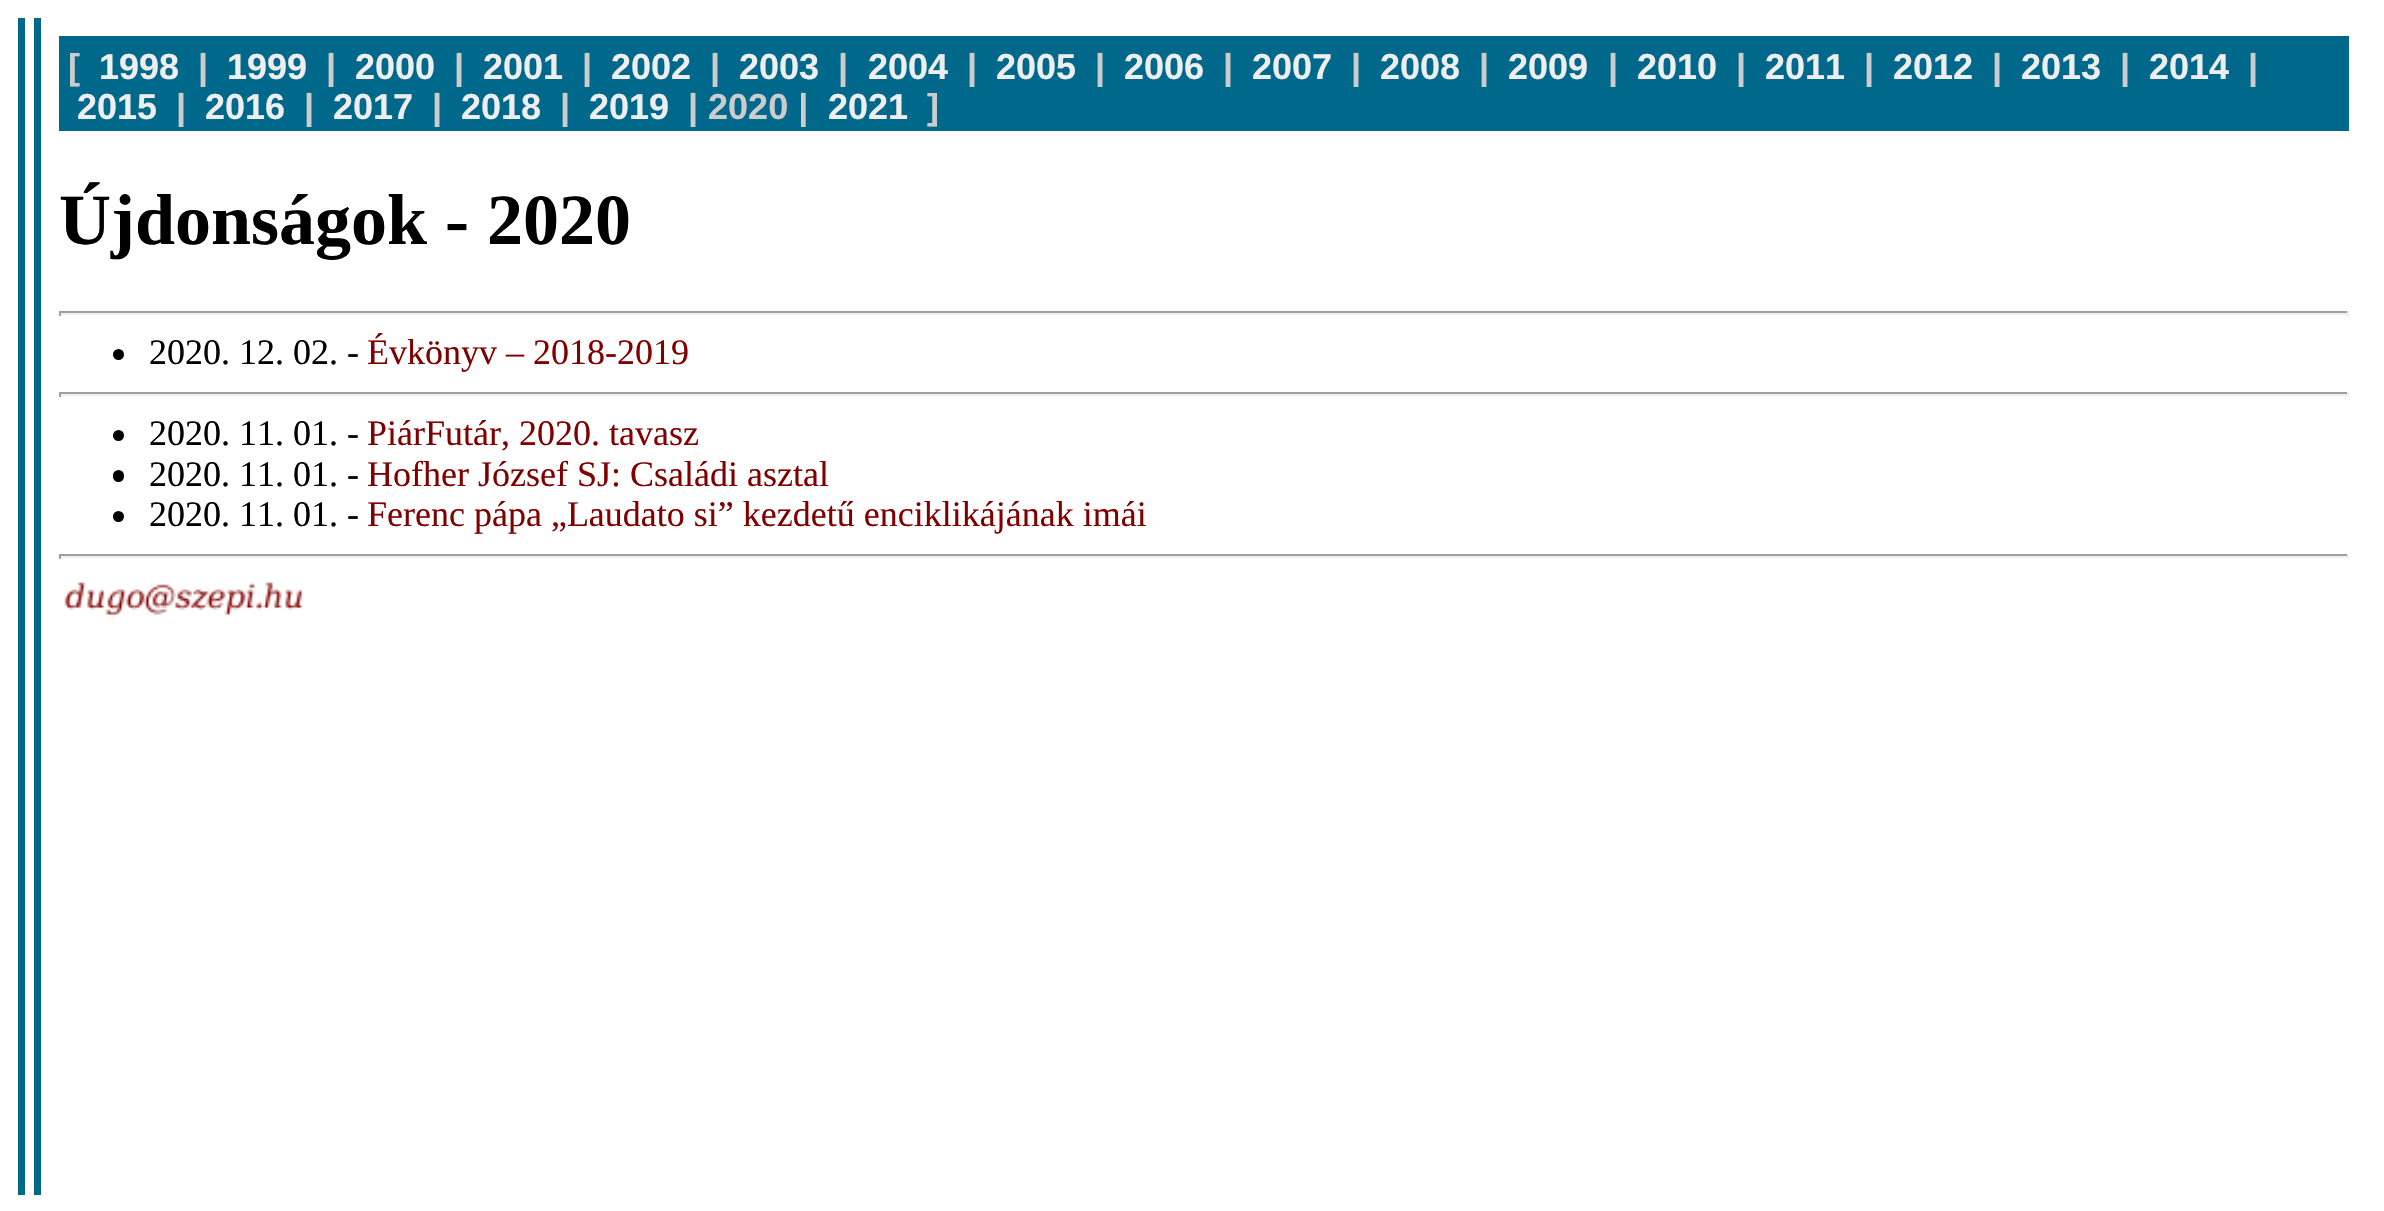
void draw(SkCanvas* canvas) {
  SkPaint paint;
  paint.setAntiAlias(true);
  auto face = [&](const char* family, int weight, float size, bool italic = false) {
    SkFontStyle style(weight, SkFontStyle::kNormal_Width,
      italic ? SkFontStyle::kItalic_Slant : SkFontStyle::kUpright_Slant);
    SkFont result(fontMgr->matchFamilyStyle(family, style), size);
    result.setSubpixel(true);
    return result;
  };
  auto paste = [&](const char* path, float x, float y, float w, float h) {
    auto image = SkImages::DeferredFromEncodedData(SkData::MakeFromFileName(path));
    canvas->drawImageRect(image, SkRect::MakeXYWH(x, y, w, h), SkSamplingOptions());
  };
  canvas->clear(0xffffffff);
  {
    const struct { float x, y, w, h; SkColor color; } items[] = {
      {18, 18, 7, 1177, 0xff00688b},
      {34, 18, 7, 1177, 0xff00688b},
      {59, 36, 2290, 95, 0xff00688b},
      {59, 311, 2290, 2, 0xff9f9f9f},
      {2347, 311, 2, 5, 0xffeeeeee},
      {59, 313, 2290, 2, 0xffeeeeee},
      {59, 311, 2, 5, 0xff9f9f9f},
    };
    for (auto [x, y, w, h, color] : items) {
      paint.setColor(color);
      canvas->drawRect(SkRect::MakeXYWH(x, y, w, h), paint);
    }
  }
  paint.setColor(0xff000000);
  canvas->drawCircle(118.5f, 354.5f, 5.5f, paint);
  {
    const struct { float x, y, w, h; SkColor color; } items[] = {
      {59, 392, 2290, 2, 0xff9f9f9f},
      {2347, 392, 2, 5, 0xffeeeeee},
      {59, 394, 2290, 2, 0xffeeeeee},
      {59, 392, 2, 5, 0xff9f9f9f},
    };
    for (auto [x, y, w, h, color] : items) {
      paint.setColor(color);
      canvas->drawRect(SkRect::MakeXYWH(x, y, w, h), paint);
    }
  }
  paint.setColor(0xff000000);
  canvas->drawCircle(118.5f, 435.5f, 5.5f, paint);
  canvas->drawRoundRect(SkRect::MakeXYWH(113, 470, 11, 12), 5.5f, 5.5f, paint);
  canvas->drawCircle(118.5f, 516.5f, 5.5f, paint);
  {
    const struct { float x, y, w, h; SkColor color; } items[] = {
      {59, 554, 2290, 2, 0xff9f9f9f},
      {2347, 554, 2, 5, 0xffeeeeee},
      {59, 556, 2290, 2, 0xffeeeeee},
      {59, 554, 2, 5, 0xff9f9f9f},
    };
    for (auto [x, y, w, h, color] : items) {
      paint.setColor(color);
      canvas->drawRect(SkRect::MakeXYWH(x, y, w, h), paint);
    }
  }
  paste("img/1.png", 64, 582, 239, 35);
  auto f0 = face("Liberation Sans", 700, 36);
  paint.setColor(0xffcccccc);
  canvas->drawString("[", 68, 79, f0, paint);
  paint.setColor(0xffeeeeee);
  canvas->drawString("1998", 99, 79, f0, paint);
  paint.setColor(0xffcccccc);
  canvas->drawString("|", 198, 79, f0, paint);
  paint.setColor(0xffeeeeee);
  canvas->drawString("1999", 227, 79, f0, paint);
  paint.setColor(0xffcccccc);
  canvas->drawString("|", 326, 79, f0, paint);
  paint.setColor(0xffeeeeee);
  canvas->drawString("2000", 355, 79, f0, paint);
  paint.setColor(0xffcccccc);
  canvas->drawString("|", 454, 79, f0, paint);
  paint.setColor(0xffeeeeee);
  canvas->drawString("2001", 483, 79, f0, paint);
  paint.setColor(0xffcccccc);
  canvas->drawString("|", 582, 79, f0, paint);
  paint.setColor(0xffeeeeee);
  canvas->drawString("2002", 611, 79, f0, paint);
  paint.setColor(0xffcccccc);
  canvas->drawString("|", 710, 79, f0, paint);
  paint.setColor(0xffeeeeee);
  canvas->drawString("2003", 739, 79, f0, paint);
  paint.setColor(0xffcccccc);
  canvas->drawString("|", 838, 79, f0, paint);
  paint.setColor(0xffeeeeee);
  canvas->drawString("2004", 868, 79, f0, paint);
  paint.setColor(0xffcccccc);
  canvas->drawString("|", 967, 79, f0, paint);
  paint.setColor(0xffeeeeee);
  canvas->drawString("2005", 996, 79, f0, paint);
  paint.setColor(0xffcccccc);
  canvas->drawString("|", 1095, 79, f0, paint);
  paint.setColor(0xffeeeeee);
  canvas->drawString("2006", 1124, 79, f0, paint);
  paint.setColor(0xffcccccc);
  canvas->drawString("|", 1223, 79, f0, paint);
  paint.setColor(0xffeeeeee);
  canvas->drawString("2007", 1252, 79, f0, paint);
  paint.setColor(0xffcccccc);
  canvas->drawString("|", 1351, 79, f0, paint);
  paint.setColor(0xffeeeeee);
  canvas->drawString("2008", 1380, 79, f0, paint);
  paint.setColor(0xffcccccc);
  canvas->drawString("|", 1479, 79, f0, paint);
  paint.setColor(0xffeeeeee);
  canvas->drawString("2009", 1508, 79, f0, paint);
  paint.setColor(0xffcccccc);
  canvas->drawString("|", 1608, 79, f0, paint);
  paint.setColor(0xffeeeeee);
  canvas->drawString("2010", 1637, 79, f0, paint);
  paint.setColor(0xffcccccc);
  canvas->drawString("|", 1736, 79, f0, paint);
  paint.setColor(0xffeeeeee);
  canvas->drawString("2011", 1765, 79, f0, paint);
  paint.setColor(0xffcccccc);
  canvas->drawString("|", 1864, 79, f0, paint);
  paint.setColor(0xffeeeeee);
  canvas->drawString("2012", 1893, 79, f0, paint);
  paint.setColor(0xffcccccc);
  canvas->drawString("|", 1992, 79, f0, paint);
  paint.setColor(0xffeeeeee);
  canvas->drawString("2013", 2021, 79, f0, paint);
  paint.setColor(0xffcccccc);
  canvas->drawString("|", 2120, 79, f0, paint);
  paint.setColor(0xffeeeeee);
  canvas->drawString("2014", 2149, 79, f0, paint);
  paint.setColor(0xffcccccc);
  canvas->drawString("|", 2248, 79, f0, paint);
  paint.setColor(0xffeeeeee);
  canvas->drawString("2015", 77, 119, f0, paint);
  paint.setColor(0xffcccccc);
  canvas->drawString("|", 176, 119, f0, paint);
  paint.setColor(0xffeeeeee);
  canvas->drawString("2016", 205, 119, f0, paint);
  paint.setColor(0xffcccccc);
  canvas->drawString("|", 304, 119, f0, paint);
  paint.setColor(0xffeeeeee);
  canvas->drawString("2017", 333, 119, f0, paint);
  paint.setColor(0xffcccccc);
  canvas->drawString("|", 432, 119, f0, paint);
  paint.setColor(0xffeeeeee);
  canvas->drawString("2018", 461, 119, f0, paint);
  paint.setColor(0xffcccccc);
  canvas->drawString("|", 560, 119, f0, paint);
  paint.setColor(0xffeeeeee);
  canvas->drawString("2019", 589, 119, f0, paint);
  paint.setColor(0xffcccccc);
  canvas->drawString("| 2020 |", 688, 119, f0, paint);
  paint.setColor(0xffeeeeee);
  canvas->drawString("2021", 828, 119, f0, paint);
  paint.setColor(0xffcccccc);
  canvas->drawString("]", 927, 119, f0, paint);
  auto f1 = face("Liberation Serif", 700, 72);
  paint.setColor(0xff000000);
  canvas->drawString("Újdonságok - 2020", 59, 244, f1, paint);
  auto f2 = face("Liberation Serif", 400, 36);
  canvas->drawString("2020. 12. 02. -", 149, 364, f2, paint);
  paint.setColor(0xff800000);
  canvas->drawString("Évkönyv – 2018-2019", 367, 364, f2, paint);
  paint.setColor(0xff000000);
  canvas->drawString("2020. 11. 01. -", 149, 445, f2, paint);
  paint.setColor(0xff800000);
  canvas->drawString("PiárFutár, 2020. tavasz", 367, 445, f2, paint);
  paint.setColor(0xff000000);
  canvas->drawString("2020. 11. 01. -", 149, 486, f2, paint);
  paint.setColor(0xff800000);
  canvas->drawString("Hofher József SJ: Családi asztal", 367, 486, f2, paint);
  paint.setColor(0xff000000);
  canvas->drawString("2020. 11. 01. -", 149, 526, f2, paint);
  paint.setColor(0xff800000);
  canvas->drawString("Ferenc pápa „Laudato si” kezdetű enciklikájának imái", 367, 526, f2, paint);
}
